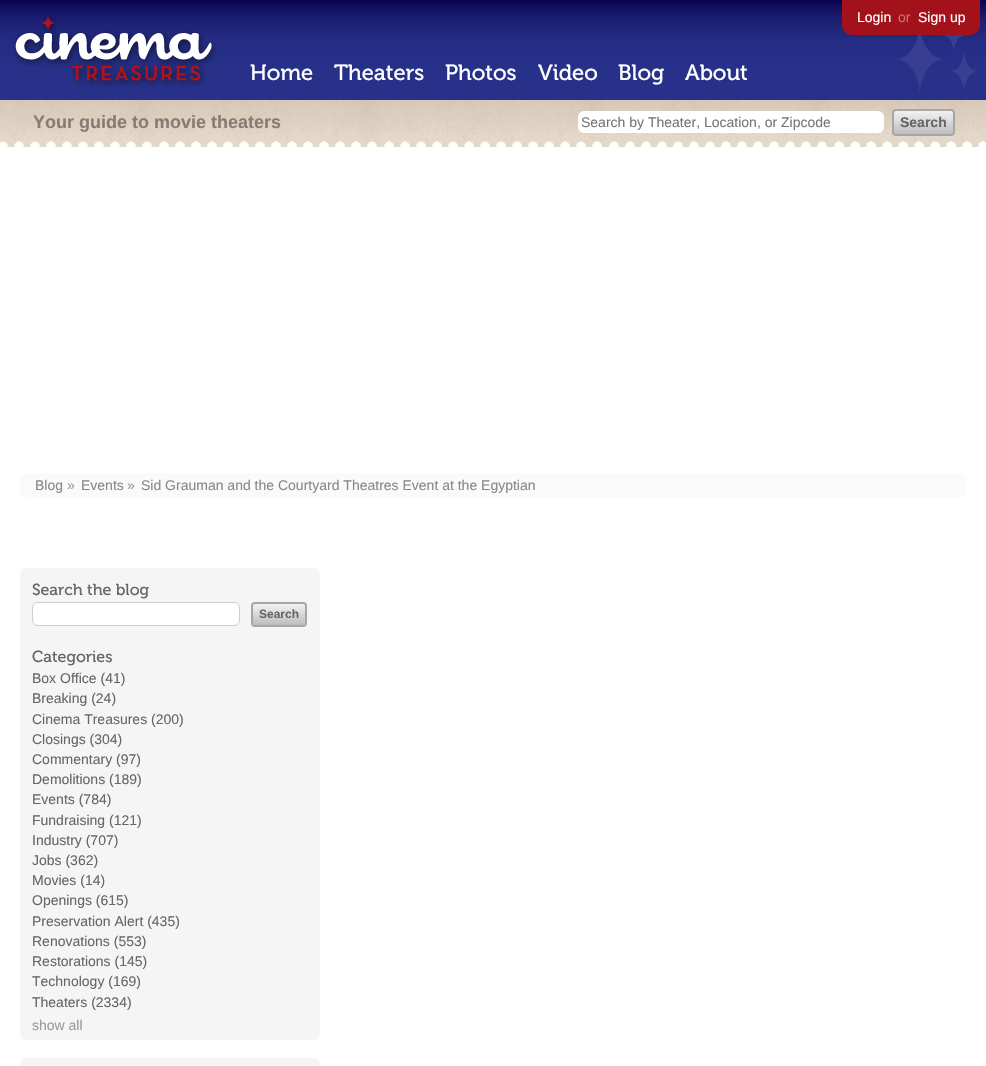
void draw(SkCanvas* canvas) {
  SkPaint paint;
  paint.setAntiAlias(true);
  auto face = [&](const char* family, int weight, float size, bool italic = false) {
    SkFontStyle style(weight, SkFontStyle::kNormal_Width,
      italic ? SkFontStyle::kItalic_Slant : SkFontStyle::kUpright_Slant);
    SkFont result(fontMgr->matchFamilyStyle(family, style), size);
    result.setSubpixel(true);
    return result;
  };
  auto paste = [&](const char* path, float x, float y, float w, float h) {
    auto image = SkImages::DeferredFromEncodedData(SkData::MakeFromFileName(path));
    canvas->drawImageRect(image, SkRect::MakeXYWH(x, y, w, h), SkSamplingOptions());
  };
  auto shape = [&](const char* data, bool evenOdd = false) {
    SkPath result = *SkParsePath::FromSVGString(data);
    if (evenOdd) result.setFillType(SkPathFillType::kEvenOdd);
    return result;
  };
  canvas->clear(0xffffffff);
  paste("img/1.png", 0, 0, 986, 100);
  paste("img/2.png", 12, 15, 206, 73);
  paint.setColor(0xffa3121b);
  canvas->drawPath(shape("M842 0H980V25C980 30.5 975.5 35 970 35H852C846.5 35 842 30.5 842 25Z"), paint);
  paste("img/3.png", 896, 35, 81, 58);
  paste("img/4.png", 0, 100, 986, 48);
  paint.setColor(0xffffffff);
  canvas->drawRoundRect(SkRect::MakeXYWH(578, 111, 306, 22), 6, 6, paint);
  {
    const SkColor colors[] = {0xfff2f2f2, 0xffbdbdbd};
    const float stops[] = {0, 1};
    const SkPoint ends[] = {{924, 111}, {924, 134}};
    paint.setShader(SkGradientShader::MakeLinear(ends, colors, stops, 2, SkTileMode::kClamp));
    paint.setAlpha(255);
  }
  canvas->drawRoundRect(SkRect::MakeXYWH(894, 111, 59, 23), 2, 2, paint);
  paint.setStroke(true);
  paint.setStrokeWidth(2);
  paint.setShader(nullptr);
  paint.setColor(0xffa6a6a6);
  canvas->drawRoundRect(SkRect::MakeXYWH(893, 110, 61, 25), 3, 3, paint);
  paint.setStroke(false);
  paint.setColor(0xfffafafa);
  canvas->drawRoundRect(SkRect::MakeXYWH(20, 473, 946, 24), 6, 6, paint);
  paint.setColor(0xfff5f5f5);
  canvas->drawRoundRect(SkRect::MakeXYWH(20, 568, 300, 472), 6, 6, paint);
  paint.setColor(0xffffffff);
  canvas->drawRoundRect(SkRect::MakeXYWH(32.5f, 602.5f, 207, 23), 5.5f, 5.5f, paint);
  paint.setStroke(true);
  paint.setStrokeWidth(1);
  paint.setColor(0xffcccccc);
  canvas->drawRoundRect(SkRect::MakeXYWH(32.5f, 602.5f, 207, 23), 5.5f, 5.5f, paint);
  paint.setStroke(false);
  {
    const SkColor colors[] = {0xfff2f2f2, 0xffbdbdbd};
    const float stops[] = {0, 1};
    const SkPoint ends[] = {{279, 604}, {279, 625}};
    paint.setShader(SkGradientShader::MakeLinear(ends, colors, stops, 2, SkTileMode::kClamp));
    paint.setAlpha(255);
  }
  canvas->drawRoundRect(SkRect::MakeXYWH(253, 604, 52, 21), 2, 2, paint);
  paint.setStroke(true);
  paint.setStrokeWidth(2);
  paint.setShader(nullptr);
  paint.setColor(0xffa6a6a6);
  canvas->drawRoundRect(SkRect::MakeXYWH(252, 603, 54, 23), 3, 3, paint);
  paint.setStroke(false);
  paint.setColor(0xfff5f5f5);
  canvas->drawRoundRect(SkRect::MakeXYWH(20, 1058, 300, 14), 6, 6, paint);
  auto f0 = face("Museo", 400, 22);
  paint.setColor(0xffffffff);
  {
    const struct { const char* s; float x, y; } items[] = {
      {"Home", 250, 80},
      {"Theaters", 334, 80},
      {"Photos", 445, 80},
      {"Video", 538, 80},
      {"Blog", 618, 80},
      {"About", 685, 80},
    };
    for (auto [s, x, y] : items) {
      canvas->drawString(s, x, y, f0, paint);
    }
  }
  auto f1 = face("Liberation Sans", 400, 14);
  canvas->drawString("Login", 857, 22, f1, paint);
  paint.setColor(0xffc87176);
  canvas->drawString("or", 898, 22, f1, paint);
  paint.setColor(0xffffffff);
  canvas->drawString("Sign up", 918, 22, f1, paint);
  auto f2 = face("Liberation Sans", 700, 18);
  paint.setColor(0xff857d74);
  canvas->drawString("Your guide to movie theaters", 33, 128, f2, paint);
  paint.setColor(0xff757575);
  canvas->drawString("Search by Theater, Location, or Zipcode", 581, 127, f1, paint);
  auto f3 = face("Liberation Sans", 700, 14);
  paint.setColor(0xff666666);
  canvas->drawString("Search", 900, 127, f3, paint);
  paint.setColor(0xff888888);
  canvas->drawString("Blog", 35, 490, f1, paint);
  paint.setColor(0xff999999);
  canvas->drawString("»", 67, 490, f1, paint);
  paint.setColor(0xff888888);
  canvas->drawString("Events", 81, 490, f1, paint);
  paint.setColor(0xff999999);
  canvas->drawString("»", 127, 490, f1, paint);
  paint.setColor(0xff888888);
  canvas->drawString("Sid Grauman and the Courtyard Theatres Event at the Egyptian", 141, 490, f1, paint);
  auto f4 = face("Museo", 400, 16);
  paint.setColor(0xff666666);
  canvas->drawString("Search the blog", 32, 595, f4, paint);
  auto f5 = face("Liberation Sans", 700, 12);
  canvas->drawString("Search", 259, 618, f5, paint);
  canvas->drawString("Categories", 32, 662, f4, paint);
  {
    const struct { const char* s; float x, y; } items[] = {
      {"Box Office (41)", 32, 683},
      {"Breaking (24)", 32, 703},
      {"Cinema Treasures (200)", 32, 724},
      {"Closings (304)", 32, 744},
      {"Commentary (97)", 32, 764},
      {"Demolitions (189)", 32, 784},
      {"Events (784)", 32, 804},
      {"Fundraising (121)", 32, 825},
      {"Industry (707)", 32, 845},
      {"Jobs (362)", 32, 865},
      {"Movies (14)", 32, 885},
      {"Openings (615)", 32, 905},
      {"Preservation Alert (435)", 32, 926},
      {"Renovations (553)", 32, 946},
      {"Restorations (145)", 32, 966},
      {"Technology (169)", 32, 986},
      {"Theaters (2334)", 32, 1007},
    };
    for (auto [s, x, y] : items) {
      canvas->drawString(s, x, y, f1, paint);
    }
  }
  paint.setColor(0xff999999);
  canvas->drawString("show all", 32, 1030, f1, paint);
}
